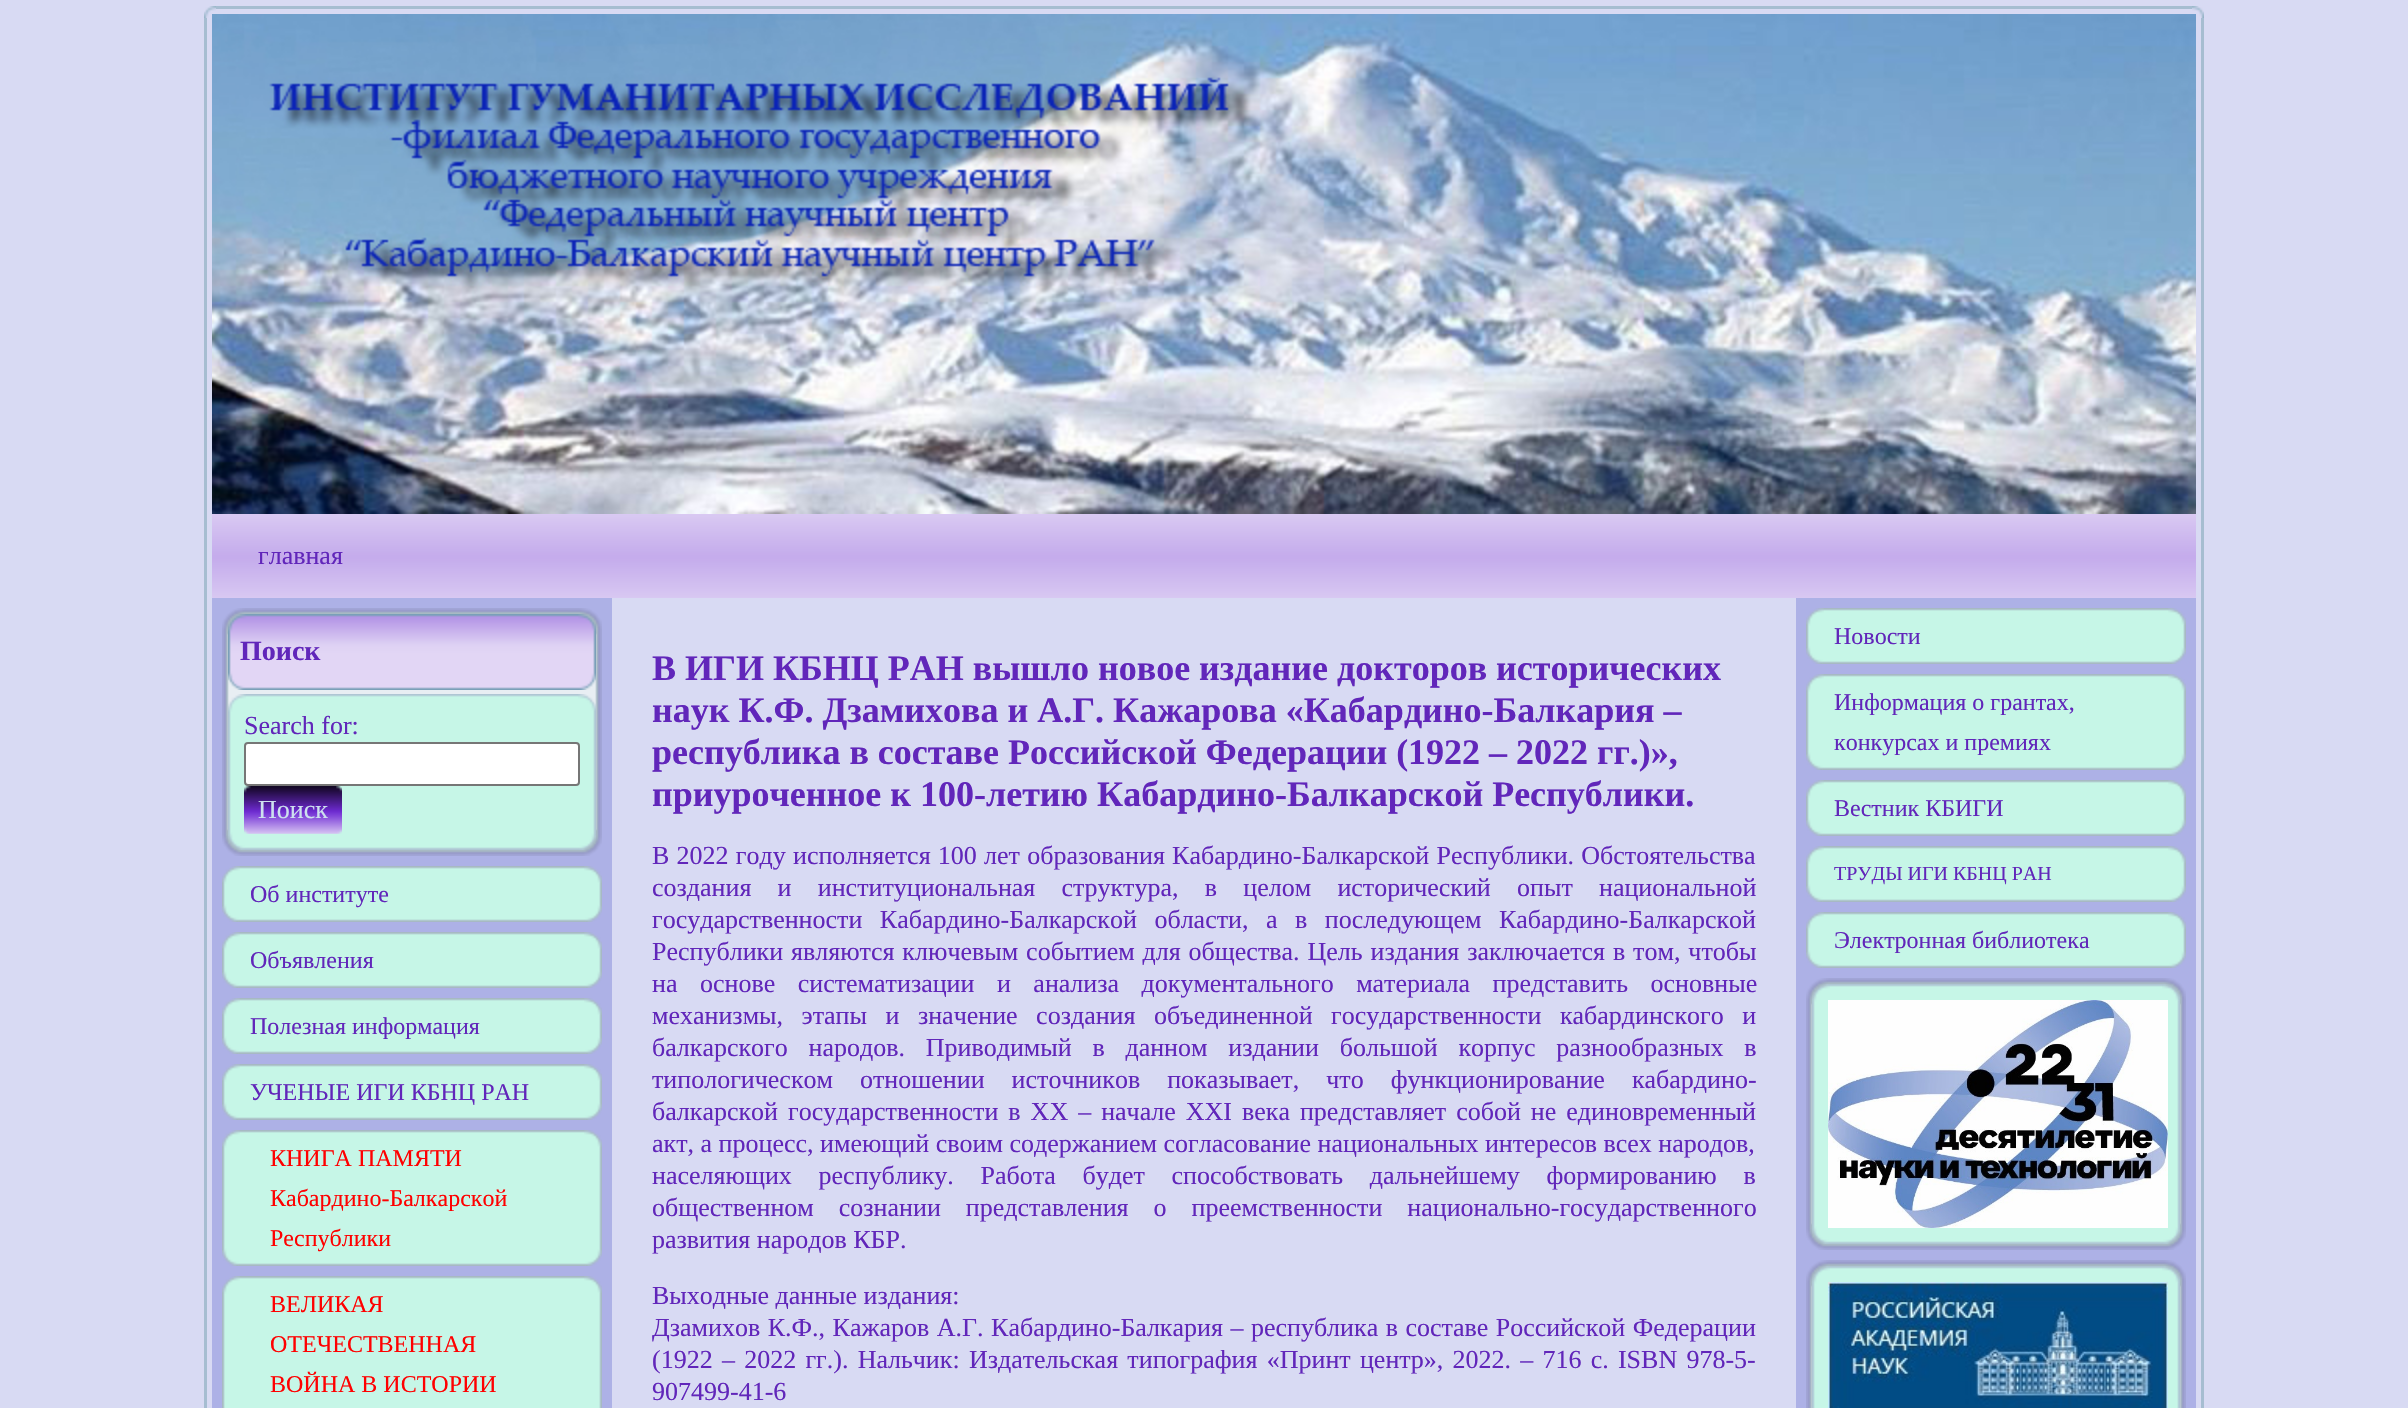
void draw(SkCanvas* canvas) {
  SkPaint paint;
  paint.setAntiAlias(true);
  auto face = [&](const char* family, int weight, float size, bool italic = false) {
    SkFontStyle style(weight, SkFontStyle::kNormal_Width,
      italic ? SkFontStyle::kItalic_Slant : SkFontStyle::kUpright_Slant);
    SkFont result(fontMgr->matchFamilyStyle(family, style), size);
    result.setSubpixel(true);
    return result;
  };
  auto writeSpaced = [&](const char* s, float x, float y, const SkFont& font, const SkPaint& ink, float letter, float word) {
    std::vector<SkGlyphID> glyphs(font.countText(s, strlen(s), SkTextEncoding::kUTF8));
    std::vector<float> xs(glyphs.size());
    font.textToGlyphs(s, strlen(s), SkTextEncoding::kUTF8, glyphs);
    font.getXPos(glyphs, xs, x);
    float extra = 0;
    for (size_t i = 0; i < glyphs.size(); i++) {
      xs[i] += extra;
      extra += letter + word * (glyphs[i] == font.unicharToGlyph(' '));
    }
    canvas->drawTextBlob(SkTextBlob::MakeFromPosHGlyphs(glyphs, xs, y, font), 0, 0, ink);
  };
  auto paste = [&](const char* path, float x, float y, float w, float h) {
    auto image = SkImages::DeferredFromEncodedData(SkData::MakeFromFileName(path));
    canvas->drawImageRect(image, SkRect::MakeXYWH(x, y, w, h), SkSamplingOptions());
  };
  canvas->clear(0xffd8daf3);
  paste("img/1.png", 204, 6, 12, 12);
  paint.setColor(0xffa6bdd1);
  canvas->drawRect(SkRect::MakeXYWH(216, 6, 1976, 3), paint);
  paste("img/2.png", 2192, 6, 12, 12);
  canvas->drawRect(SkRect::MakeXYWH(204, 18, 3, 1390), paint);
  paste("img/3.png", 212, 14, 1984, 494);
  paste("img/4.png", 212, 508, 1984, 6);
  paste("img/5.png", 212, 514, 1984, 84);
  paint.setColor(0xffadb1e6);
  canvas->drawRect(SkRect::MakeXYWH(212, 598, 400, 810), paint);
  paste("img/6.png", 222, 608, 34, 34);
  paste("img/7.png", 256, 608, 312, 6);
  paste("img/8.png", 568, 608, 34, 34);
  paste("img/9.png", 222, 642, 34, 180);
  paste("img/22.png", 568, 642, 34, 180);
  paste("img/10.png", 228, 614, 350, 76);
  paste("img/11.png", 578, 614, 18, 76);
  paste("img/12.png", 228, 694, 18, 18);
  paste("img/13.png", 246, 694, 332, 18);
  paste("img/14.png", 578, 694, 18, 18);
  paste("img/23.png", 222, 822, 34, 34);
  paste("img/15.png", 228, 712, 18, 120);
  paste("img/25.png", 568, 822, 34, 34);
  paint.setColor(0xffc6f6e7);
  canvas->drawRect(SkRect::MakeXYWH(246, 712, 332, 120), paint);
  paste("img/16.png", 578, 712, 18, 120);
  paint.setColor(0xffffffff);
  canvas->drawRoundRect(SkRect::MakeXYWH(245, 743, 334, 42), 3, 3, paint);
  paint.setStroke(true);
  paint.setStrokeWidth(2);
  paint.setColor(0xff767676);
  canvas->drawRoundRect(SkRect::MakeXYWH(245, 743, 334, 42), 3, 3, paint);
  paste("img/19.png", 228, 832, 18, 18);
  paste("img/20.png", 246, 832, 332, 18);
  paste("img/17.png", 244, 786, 92, 48);
  paste("img/18.png", 336, 786, 6, 48);
  paste("img/21.png", 578, 832, 18, 18);
  paint.setStroke(false);
  paint.setColor(0xffe8eef3);
  canvas->drawRect(SkRect::MakeXYWH(256, 690, 312, 4), paint);
  paste("img/24.png", 256, 850, 312, 6);
  paste("img/26.png", 222, 866, 18, 18);
  paste("img/27.png", 240, 866, 344, 18);
  paste("img/28.png", 584, 866, 18, 18);
  paste("img/29.png", 222, 884, 18, 20);
  paint.setColor(0xffc6f6e7);
  canvas->drawRect(SkRect::MakeXYWH(240, 884, 344, 20), paint);
  paste("img/30.png", 584, 884, 18, 20);
  paste("img/31.png", 222, 904, 18, 18);
  paste("img/32.png", 240, 904, 344, 18);
  paste("img/33.png", 584, 904, 18, 18);
  paste("img/26.png", 222, 932, 18, 18);
  paste("img/27.png", 240, 932, 344, 18);
  paste("img/28.png", 584, 932, 18, 18);
  paste("img/29.png", 222, 950, 18, 20);
  canvas->drawRect(SkRect::MakeXYWH(240, 950, 344, 20), paint);
  paste("img/30.png", 584, 950, 18, 20);
  paste("img/31.png", 222, 970, 18, 18);
  paste("img/32.png", 240, 970, 344, 18);
  paste("img/33.png", 584, 970, 18, 18);
  paste("img/26.png", 222, 998, 18, 18);
  paste("img/27.png", 240, 998, 344, 18);
  paste("img/28.png", 584, 998, 18, 18);
  paste("img/29.png", 222, 1016, 18, 20);
  canvas->drawRect(SkRect::MakeXYWH(240, 1016, 344, 20), paint);
  paste("img/30.png", 584, 1016, 18, 20);
  paste("img/31.png", 222, 1036, 18, 18);
  paste("img/32.png", 240, 1036, 344, 18);
  paste("img/33.png", 584, 1036, 18, 18);
  paste("img/26.png", 222, 1064, 18, 18);
  paste("img/27.png", 240, 1064, 344, 18);
  paste("img/28.png", 584, 1064, 18, 18);
  paste("img/29.png", 222, 1082, 18, 20);
  canvas->drawRect(SkRect::MakeXYWH(240, 1082, 344, 20), paint);
  paste("img/30.png", 584, 1082, 18, 20);
  paste("img/31.png", 222, 1102, 18, 18);
  paste("img/32.png", 240, 1102, 344, 18);
  paste("img/33.png", 584, 1102, 18, 18);
  paste("img/26.png", 222, 1130, 18, 18);
  paste("img/27.png", 240, 1130, 344, 18);
  paste("img/28.png", 584, 1130, 18, 18);
  paste("img/34.png", 222, 1148, 18, 100);
  canvas->drawRect(SkRect::MakeXYWH(240, 1148, 344, 100), paint);
  paste("img/35.png", 584, 1148, 18, 100);
  paste("img/31.png", 222, 1248, 18, 18);
  paste("img/32.png", 240, 1248, 344, 18);
  paste("img/33.png", 584, 1248, 18, 18);
  paste("img/26.png", 222, 1276, 18, 18);
  paste("img/27.png", 240, 1276, 344, 18);
  paste("img/28.png", 584, 1276, 18, 18);
  paste("img/36.png", 222, 1294, 18, 114);
  canvas->drawRect(SkRect::MakeXYWH(240, 1294, 344, 114), paint);
  paste("img/37.png", 584, 1294, 18, 114);
  paint.setColor(0xffadb1e6);
  canvas->drawRect(SkRect::MakeXYWH(1796, 598, 400, 810), paint);
  paste("img/26.png", 1806, 608, 18, 18);
  paste("img/27.png", 1824, 608, 344, 18);
  paste("img/28.png", 2168, 608, 18, 18);
  paste("img/29.png", 1806, 626, 18, 20);
  paint.setColor(0xffc6f6e7);
  canvas->drawRect(SkRect::MakeXYWH(1824, 626, 344, 20), paint);
  paste("img/30.png", 2168, 626, 18, 20);
  paste("img/31.png", 1806, 646, 18, 18);
  paste("img/32.png", 1824, 646, 344, 18);
  paste("img/33.png", 2168, 646, 18, 18);
  paste("img/26.png", 1806, 674, 18, 18);
  paste("img/27.png", 1824, 674, 344, 18);
  paste("img/28.png", 2168, 674, 18, 18);
  paste("img/38.png", 1806, 692, 18, 60);
  canvas->drawRect(SkRect::MakeXYWH(1824, 692, 344, 60), paint);
  paste("img/39.png", 2168, 692, 18, 60);
  paste("img/31.png", 1806, 752, 18, 18);
  paste("img/32.png", 1824, 752, 344, 18);
  paste("img/33.png", 2168, 752, 18, 18);
  paste("img/26.png", 1806, 780, 18, 18);
  paste("img/27.png", 1824, 780, 344, 18);
  paste("img/28.png", 2168, 780, 18, 18);
  paste("img/29.png", 1806, 798, 18, 20);
  canvas->drawRect(SkRect::MakeXYWH(1824, 798, 344, 20), paint);
  paste("img/30.png", 2168, 798, 18, 20);
  paste("img/31.png", 1806, 818, 18, 18);
  paste("img/32.png", 1824, 818, 344, 18);
  paste("img/33.png", 2168, 818, 18, 18);
  paste("img/26.png", 1806, 846, 18, 18);
  paste("img/27.png", 1824, 846, 344, 18);
  paste("img/28.png", 2168, 846, 18, 18);
  paste("img/29.png", 1806, 864, 18, 20);
  canvas->drawRect(SkRect::MakeXYWH(1824, 864, 344, 20), paint);
  paste("img/30.png", 2168, 864, 18, 20);
  paste("img/31.png", 1806, 884, 18, 18);
  paste("img/32.png", 1824, 884, 344, 18);
  paste("img/33.png", 2168, 884, 18, 18);
  paste("img/26.png", 1806, 912, 18, 18);
  paste("img/27.png", 1824, 912, 344, 18);
  paste("img/28.png", 2168, 912, 18, 18);
  paste("img/29.png", 1806, 930, 18, 20);
  canvas->drawRect(SkRect::MakeXYWH(1824, 930, 344, 20), paint);
  paste("img/30.png", 2168, 930, 18, 20);
  paste("img/31.png", 1806, 950, 18, 18);
  paste("img/32.png", 1824, 950, 344, 18);
  paste("img/33.png", 2168, 950, 18, 18);
  paste("img/6.png", 1806, 978, 34, 34);
  paste("img/7.png", 1840, 978, 312, 6);
  paste("img/8.png", 2152, 978, 34, 34);
  paste("img/40.png", 1806, 1012, 6, 204);
  paste("img/41.png", 1812, 984, 18, 18);
  paste("img/42.png", 1830, 984, 332, 16);
  paste("img/43.png", 2162, 984, 18, 18);
  paste("img/23.png", 1806, 1216, 34, 34);
  paste("img/44.png", 1812, 1002, 16, 224);
  paste("img/19.png", 1812, 1226, 18, 18);
  paste("img/25.png", 2152, 1216, 34, 34);
  paste("img/21.png", 2162, 1226, 18, 18);
  paste("img/45.png", 1828, 1000, 340, 228);
  paste("img/46.png", 2168, 1002, 12, 224);
  paste("img/47.png", 1830, 1228, 332, 16);
  paste("img/48.png", 2180, 1012, 6, 204);
  paste("img/24.png", 1840, 1244, 312, 6);
  paste("img/6.png", 1806, 1260, 34, 34);
  paste("img/7.png", 1840, 1260, 312, 6);
  paste("img/8.png", 2152, 1260, 34, 34);
  paste("img/49.png", 1806, 1294, 6, 108);
  paste("img/41.png", 1812, 1266, 18, 18);
  paste("img/42.png", 1830, 1266, 332, 16);
  paste("img/43.png", 2162, 1266, 18, 18);
  paste("img/50.png", 1812, 1284, 16, 124);
  paste("img/51.png", 1828, 1282, 340, 126);
  paste("img/52.png", 2168, 1284, 12, 124);
  paste("img/53.png", 2180, 1294, 6, 108);
  paste("img/54.png", 1806, 1402, 6, 6);
  paste("img/55.png", 2180, 1402, 6, 6);
  paint.setColor(0xffa6bdd1);
  canvas->drawRect(SkRect::MakeXYWH(2201, 18, 3, 1390), paint);
  auto f0 = face("Liberation Serif", 400, 26);
  paint.setColor(0xff6126ba);
  canvas->drawString("главная", 258, 564, f0, paint);
  auto f1 = face("Liberation Serif", 700, 28);
  canvas->drawString("Поиск", 240, 660, f1, paint);
  canvas->drawString("Search for:", 244, 734, f0, paint);
  paint.setColor(0xffcde0ee);
  canvas->drawString("Поиск", 258, 818, f0, paint);
  auto f2 = face("Liberation Serif", 400, 24);
  paint.setColor(0xff6126ba);
  {
    const struct { const char* s; float x, y; } items[] = {
      {"Об институте", 250, 902},
      {"Объявления", 250, 968},
      {"Полезная информация", 250, 1034},
      {"УЧЕНЫЕ ИГИ КБНЦ РАН", 250, 1100},
    };
    for (auto [s, x, y] : items) {
      canvas->drawString(s, x, y, f2, paint);
    }
  }
  paint.setColor(0xffff0000);
  {
    const struct { const char* s; float x, y; } items[] = {
      {"КНИГА ПАМЯТИ", 270, 1166},
      {"Кабардино-Балкарской", 270, 1206},
      {"Республики", 270, 1246},
      {"ВЕЛИКАЯ", 270, 1312},
      {"ОТЕЧЕСТВЕННАЯ", 270, 1352},
      {"ВОЙНА В ИСТОРИИ", 270, 1392},
    };
    for (auto [s, x, y] : items) {
      canvas->drawString(s, x, y, f2, paint);
    }
  }
  auto f3 = face("Liberation Serif", 700, 36);
  paint.setColor(0xff6126ba);
  {
    const struct { const char* s; float x, y; } items[] = {
      {"В ИГИ КБНЦ РАН вышло новое издание докторов исторических", 652, 680},
      {"наук К.Ф. Дзамихова и А.Г. Кажарова «Кабардино-Балкария –", 652, 722},
      {"республика в составе Российской Федерации (1922 – 2022 гг.)»,", 652, 764},
      {"приуроченное к 100-летию Кабардино-Балкарской Республики.", 652, 806},
    };
    for (auto [s, x, y] : items) {
      canvas->drawString(s, x, y, f3, paint);
    }
  }
  writeSpaced("В 2022 году исполняется 100 лет образования Кабардино-Балкарской Республики. Обстоятельства", 652, 864, f0, paint, 0, 0.75f);
  writeSpaced("создания и институциональная структура, в целом исторический опыт национальной", 652, 896, f0, paint, 0, 19.75f);
  writeSpaced("государственности Кабардино-Балкарской области, а в последующем Кабардино-Балкарской", 652, 928, f0, paint, 0, 11);
  writeSpaced("Республики являются ключевым событием для общества. Цель издания заключается в том, чтобы", 652, 960, f0, paint, 0, 1.4f);
  writeSpaced("на основе систематизации и анализа документального материала представить основные", 652, 992, f0, paint, 0, 16);
  writeSpaced("механизмы, этапы и значение создания объединенной государственности кабардинского и", 652, 1024, f0, paint, 0, 12);
  writeSpaced("балкарского народов. Приводимый в данном издании большой корпус разнообразных в", 652, 1056, f0, paint, 0, 14.25f);
  writeSpaced("типологическом отношении источников показывает, что функционирование кабардино-", 652, 1088, f0, paint, 0, 20.5f);
  writeSpaced("балкарской государственности в XX – начале XXI века представляет собой не единовременный", 652, 1120, f0, paint, 0, 3.5f);
  canvas->drawString("акт, а процесс, имеющий своим содержанием согласование национальных интересов всех народов,", 652, 1152, f0, paint);
  writeSpaced("населяющих республику. Работа будет способствовать дальнейшему формированию в", 652, 1184, f0, paint, 0, 20.25f);
  writeSpaced("общественном сознании представления о преемственности национально-государственного", 652, 1216, f0, paint, 0, 18.5f);
  canvas->drawString("развития народов КБР.", 652, 1248, f0, paint);
  canvas->drawString("Выходные данные издания:", 652, 1304, f0, paint);
  writeSpaced("Дзамихов К.Ф., Кажаров А.Г. Кабардино-Балкария – республика в составе Российской Федерации", 652, 1336, f0, paint, 0, 1);
  writeSpaced("(1922 – 2022 гг.). Нальчик: Издательская типография «Принт центр», 2022. – 716 с. ISBN 978-5-", 652, 1368, f0, paint, 0, 2.75f);
  canvas->drawString("907499-41-6", 652, 1400, f0, paint);
  {
    const struct { const char* s; float x, y; } items[] = {
      {"Новости", 1834, 644},
      {"Информация о грантах,", 1834, 710},
      {"конкурсах и премиях", 1834, 750},
      {"Вестник КБИГИ", 1834, 816},
    };
    for (auto [s, x, y] : items) {
      canvas->drawString(s, x, y, f2, paint);
    }
  }
  auto f4 = face("Liberation Serif", 400, 20);
  canvas->drawString("ТРУДЫ ИГИ КБНЦ РАН", 1834, 880, f4, paint);
  canvas->drawString("Электронная библиотека", 1834, 948, f2, paint);
}
